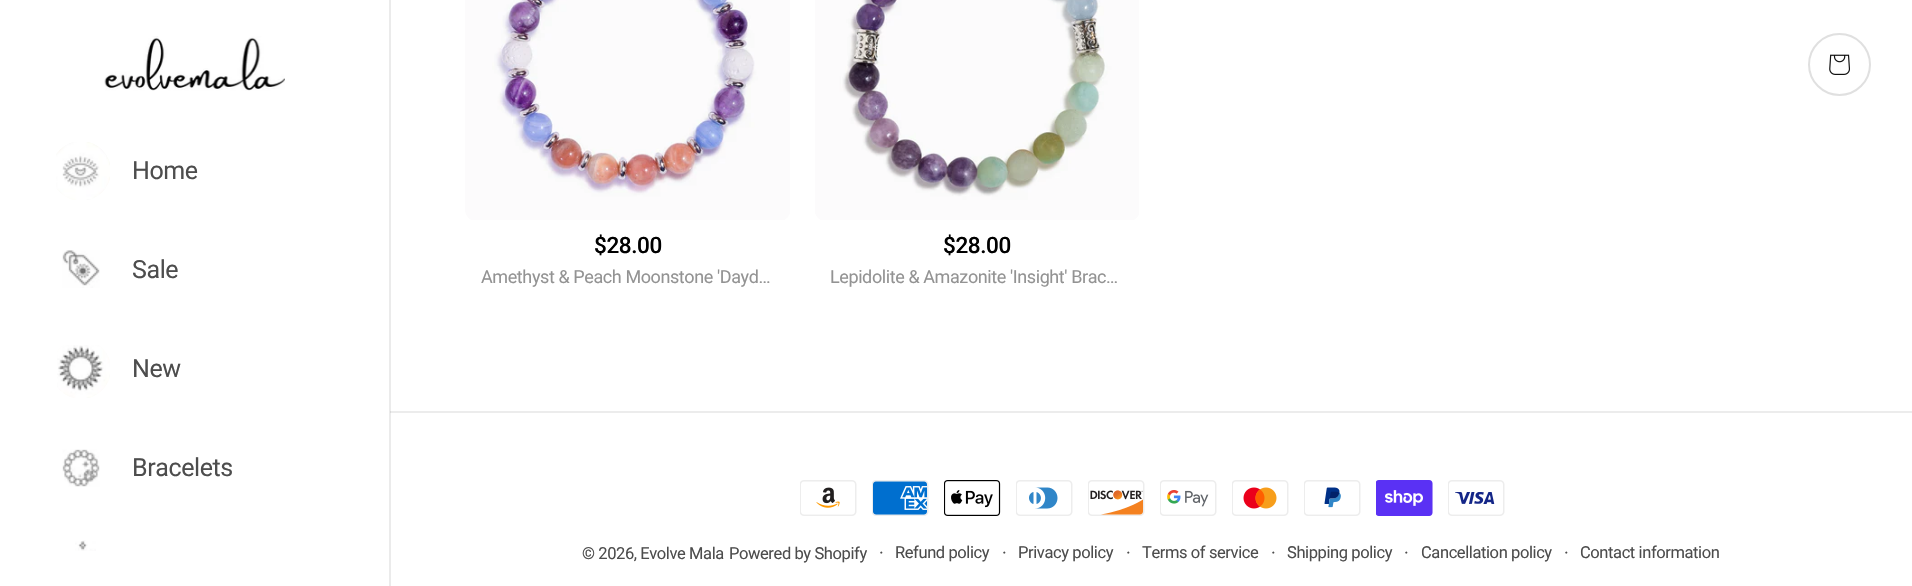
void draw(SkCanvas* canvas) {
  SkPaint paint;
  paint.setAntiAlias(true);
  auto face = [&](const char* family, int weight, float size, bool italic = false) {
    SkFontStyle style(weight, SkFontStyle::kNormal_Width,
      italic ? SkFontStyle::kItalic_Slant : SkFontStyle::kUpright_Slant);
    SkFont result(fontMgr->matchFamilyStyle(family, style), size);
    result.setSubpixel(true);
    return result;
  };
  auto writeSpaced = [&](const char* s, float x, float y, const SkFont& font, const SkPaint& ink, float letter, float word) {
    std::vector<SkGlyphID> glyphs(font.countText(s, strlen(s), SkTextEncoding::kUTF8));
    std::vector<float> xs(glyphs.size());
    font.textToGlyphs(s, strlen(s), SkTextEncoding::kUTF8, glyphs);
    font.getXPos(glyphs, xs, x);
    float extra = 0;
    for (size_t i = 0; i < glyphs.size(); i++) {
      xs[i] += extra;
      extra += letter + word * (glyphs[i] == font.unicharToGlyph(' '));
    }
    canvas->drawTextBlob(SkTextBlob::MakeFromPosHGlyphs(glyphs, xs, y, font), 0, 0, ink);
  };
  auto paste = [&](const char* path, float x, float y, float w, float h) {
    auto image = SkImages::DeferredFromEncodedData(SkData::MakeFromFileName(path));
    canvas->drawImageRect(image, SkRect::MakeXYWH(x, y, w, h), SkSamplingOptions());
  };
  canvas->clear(0xffffffff);
  paint.setColor(0xffebebeb);
  canvas->drawRect(SkRect::MakeXYWH(389, 0, 2, 586), paint);
  paint.setStroke(true);
  paint.setStrokeWidth(2);
  paint.setColor(0xffe0e0e0);
  canvas->drawCircle(1839.5f, 64.5f, 30.5f, paint);
  paste("img/1.png", 1829, 54, 21, 21);
  paste("img/2.png", 104, 36, 181, 55);
  paste("img/3.png", 56, 142, 54, 58);
  paste("img/4.png", 62, 250, 38, 38);
  paste("img/5.png", 57, 345, 53, 53);
  paste("img/6.png", 62, 449, 38, 38);
  paste("img/7.png", 75, 540, 21, 11);
  paste("img/8.png", 465, 0, 325, 220);
  paste("img/9.png", 815, 0, 324, 220);
  paint.setStroke(false);
  paint.setColor(0xffececec);
  canvas->drawRect(SkRect::MakeXYWH(390, 411, 1522, 2), paint);
  paint.setColor(0xffd9d9d9);
  canvas->drawRect(SkRect::MakeXYWH(390, 411, 1, 2), paint);
  paste("img/10.png", 800, 480, 57, 36);
  paste("img/11.png", 872, 480, 57, 36);
  paste("img/12.png", 944, 480, 57, 36);
  paste("img/13.png", 1016, 480, 57, 36);
  paste("img/14.png", 1088, 480, 57, 36);
  paste("img/15.png", 1160, 480, 57, 36);
  paste("img/16.png", 1232, 480, 57, 36);
  paste("img/17.png", 1304, 480, 57, 36);
  paste("img/18.png", 1376, 480, 57, 36);
  paste("img/19.png", 1448, 480, 57, 36);
  auto f0 = face("Roboto", 400, 25);
  paint.setColor(0xff4d4d4d);
  {
    const struct { const char* s; float x, y; } items[] = {
      {"Home", 132, 179},
      {"Sale", 132, 278},
      {"New", 132, 377},
      {"Bracelets", 132, 476},
    };
    for (auto [s, x, y] : items) {
      writeSpaced(s, x, y, f0, paint, -0.4f, 0);
    }
  }
  auto f1 = face("Roboto", 500, 22.5f);
  paint.setColor(0xff000000);
  writeSpaced("$28.00", 594, 253, f1, paint, -0.4f, 0);
  auto f2 = face("Roboto", 400, 18);
  paint.setColor(0xff939393);
  writeSpaced("Amethyst & Peach Moonstone 'Dayd…", 481, 283, f2, paint, -0.4f, 0);
  paint.setColor(0xff000000);
  writeSpaced("$28.00", 943, 253, f1, paint, -0.4f, 0);
  paint.setColor(0xff939393);
  writeSpaced("Lepidolite & Amazonite 'Insight' Brac…", 830, 283, f2, paint, -0.4f, 0);
  auto f3 = face("Roboto", 400, 16.5f);
  paint.setColor(0xff4d4d4d);
  writeSpaced("© 2026, Evolve Mala", 582, 559, f3, paint, -0.4f, 0);
  writeSpaced("Powered by Shopify", 729, 559, f3, paint, -0.4f, 0);
  writeSpaced("·", 879, 559, f2, paint, -0.4f, 0);
  writeSpaced("Refund policy", 895, 558, f3, paint, -0.4f, 0);
  writeSpaced("·", 1002, 559, f2, paint, -0.4f, 0);
  writeSpaced("Privacy policy", 1018, 558, f3, paint, -0.4f, 0);
  writeSpaced("·", 1126, 559, f2, paint, -0.4f, 0);
  writeSpaced("Terms of service", 1142, 558, f3, paint, -0.4f, 0);
  writeSpaced("·", 1271, 559, f2, paint, -0.4f, 0);
  writeSpaced("Shipping policy", 1287, 558, f3, paint, -0.4f, 0);
  writeSpaced("·", 1404, 559, f2, paint, -0.4f, 0);
  writeSpaced("Cancellation policy", 1421, 558, f3, paint, -0.4f, 0);
  writeSpaced("·", 1564, 559, f2, paint, -0.4f, 0);
  writeSpaced("Contact information", 1580, 558, f3, paint, -0.4f, 0);
}
